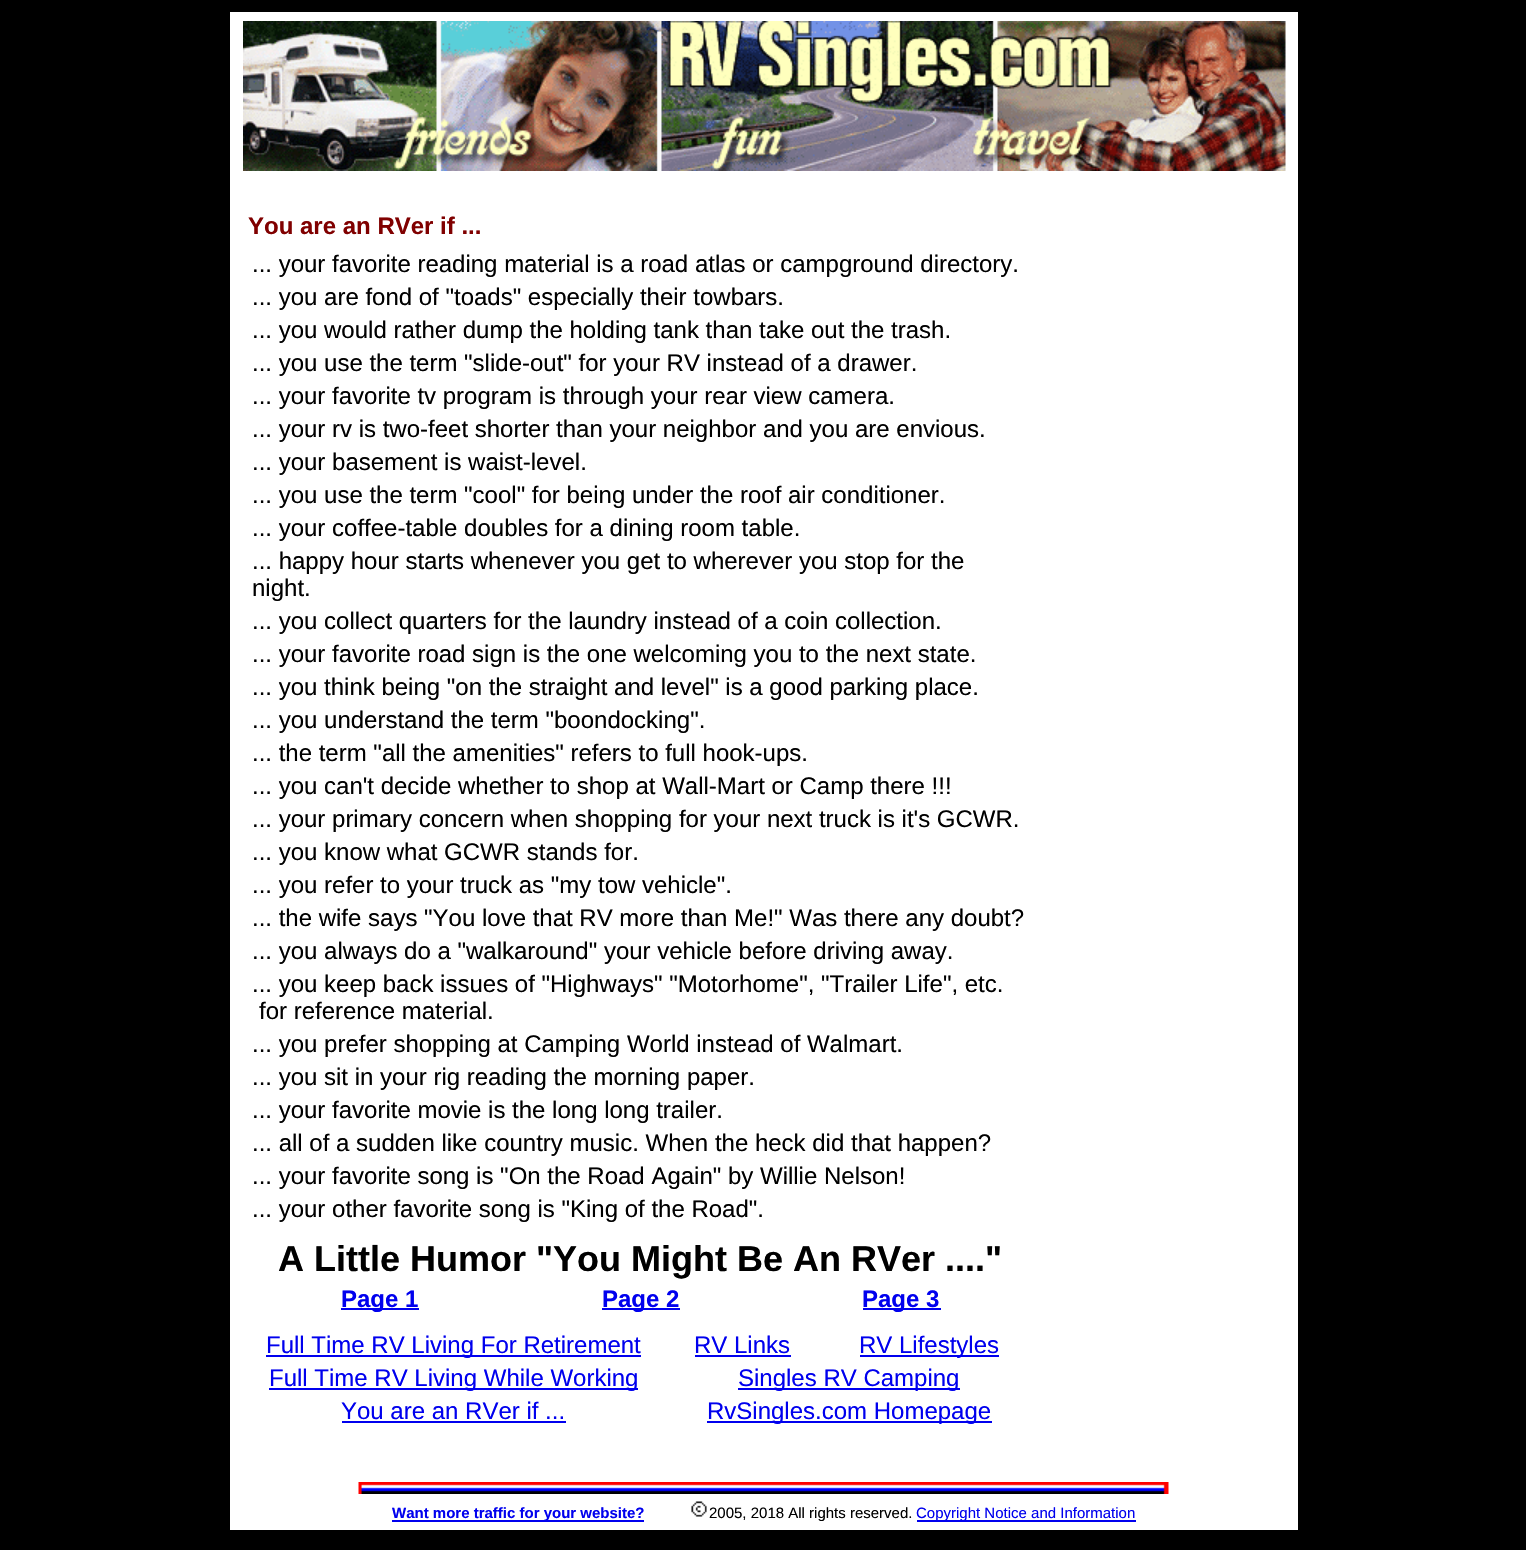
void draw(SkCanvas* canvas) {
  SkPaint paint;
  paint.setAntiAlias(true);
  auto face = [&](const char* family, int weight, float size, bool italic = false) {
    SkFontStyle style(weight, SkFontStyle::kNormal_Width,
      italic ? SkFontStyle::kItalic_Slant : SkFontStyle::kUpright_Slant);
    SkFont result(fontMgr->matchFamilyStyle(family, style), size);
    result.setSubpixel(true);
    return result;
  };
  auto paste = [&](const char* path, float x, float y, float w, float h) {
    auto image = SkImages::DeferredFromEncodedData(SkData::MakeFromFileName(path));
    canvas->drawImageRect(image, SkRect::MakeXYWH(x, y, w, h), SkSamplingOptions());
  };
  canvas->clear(0xff000000);
  paint.setColor(0xffffffff);
  canvas->drawRect(SkRect::MakeXYWH(230, 12, 1068, 1518), paint);
  paste("img/1.png", 243, 21, 1043, 150);
  {
    const struct { float x, y, w, h; SkColor color; } items[] = {
      {341, 1308, 78, 2, 0xff0000ee},
      {602, 1308, 78, 2, 0xff0000ee},
      {863, 1308, 78, 2, 0xff0000ee},
      {266, 1355, 375, 2, 0xff0000ee},
      {695, 1355, 96, 2, 0xff0000ee},
      {860, 1355, 139, 2, 0xff0000ee},
      {269, 1388, 369, 2, 0xff0000ee},
      {738, 1388, 222, 2, 0xff0000ee},
      {342, 1421, 224, 2, 0xff0000ee},
      {707, 1421, 285, 2, 0xff0000ee},
    };
    for (auto [x, y, w, h, color] : items) {
      paint.setColor(color);
      canvas->drawRect(SkRect::MakeXYWH(x, y, w, h), paint);
    }
  }
  paste("img/2.png", 358, 1482, 811, 12);
  canvas->drawRect(SkRect::MakeXYWH(392, 1520, 252, 2), paint);
  paste("img/3.png", 691, 1501, 16, 16);
  canvas->drawRect(SkRect::MakeXYWH(917, 1520, 219, 2), paint);
  auto f0 = face("Liberation Sans", 700, 24);
  paint.setColor(0xff800000);
  canvas->drawString("You are an RVer if ...", 248, 234, f0, paint);
  auto f1 = face("Liberation Sans", 400, 24);
  paint.setColor(0xff000000);
  {
    const struct { const char* s; float x, y; } items[] = {
      {"... your favorite reading material is a road atlas or campground directory.", 252, 272},
      {"... you are fond of \"toads\" especially their towbars.", 252, 305},
      {"... you would rather dump the holding tank than take out the trash.", 252, 338},
      {"... you use the term \"slide-out\" for your RV instead of a drawer.", 252, 371},
      {"... your favorite tv program is through your rear view camera.", 252, 404},
      {"... your rv is two-feet shorter than your neighbor and you are envious.", 252, 437},
      {"... your basement is waist-level.", 252, 470},
      {"... you use the term \"cool\" for being under the roof air conditioner.", 252, 503},
      {"... your coffee-table doubles for a dining room table.", 252, 536},
      {"... happy hour starts whenever you get to wherever you stop for the", 252, 569},
      {"night.", 252, 596},
      {"... you collect quarters for the laundry instead of a coin collection.", 252, 629},
      {"... your favorite road sign is the one welcoming you to the next state.", 252, 662},
      {"... you think being \"on the straight and level\" is a good parking place.", 252, 695},
      {"... you understand the term \"boondocking\".", 252, 728},
      {"... the term \"all the amenities\" refers to full hook-ups.", 252, 761},
      {"... you can't decide whether to shop at Wall-Mart or Camp there !!!", 252, 794},
      {"... your primary concern when shopping for your next truck is it's GCWR.", 252, 827},
      {"... you know what GCWR stands for.", 252, 860},
      {"... you refer to your truck as \"my tow vehicle\".", 252, 893},
      {"... the wife says \"You love that RV more than Me!\" Was there any doubt?", 252, 926},
      {"... you always do a \"walkaround\" your vehicle before driving away.", 252, 959},
      {"... you keep back issues of \"Highways\" \"Motorhome\", \"Trailer Life\", etc.", 252, 992},
      {"for reference material.", 259, 1019},
      {"... you prefer shopping at Camping World instead of Walmart.", 252, 1052},
      {"... you sit in your rig reading the morning paper.", 252, 1085},
      {"... your favorite movie is the long long trailer.", 252, 1118},
      {"... all of a sudden like country music. When the heck did that happen?", 252, 1151},
      {"... your favorite song is \"On the Road Again\" by Willie Nelson!", 252, 1184},
      {"... your other favorite song is \"King of the Road\".", 252, 1217},
    };
    for (auto [s, x, y] : items) {
      canvas->drawString(s, x, y, f1, paint);
    }
  }
  auto f2 = face("Liberation Sans", 700, 36);
  canvas->drawString("A Little Humor \"You Might Be An RVer ....\"", 278, 1271, f2, paint);
  paint.setColor(0xff0000ee);
  {
    const struct { const char* s; float x, y; } items[] = {
      {"Page 1", 341, 1307},
      {"Page 2", 602, 1307},
      {"Page 3", 862, 1307},
    };
    for (auto [s, x, y] : items) {
      canvas->drawString(s, x, y, f0, paint);
    }
  }
  {
    const struct { const char* s; float x, y; } items[] = {
      {"Full Time RV Living For Retirement", 266, 1353},
      {"RV Links", 694, 1353},
      {"RV Lifestyles", 859, 1353},
      {"Full Time RV Living While Working", 269, 1386},
      {"Singles RV Camping", 738, 1386},
      {"You are an RVer if ...", 341, 1419},
      {"RvSingles.com Homepage", 707, 1419},
    };
    for (auto [s, x, y] : items) {
      canvas->drawString(s, x, y, f1, paint);
    }
  }
  auto f3 = face("Liberation Sans", 700, 15);
  canvas->drawString("Want more traffic for your website?", 392, 1518, f3, paint);
  auto f4 = face("Liberation Sans", 400, 15);
  paint.setColor(0xff000000);
  canvas->drawString("2005, 2018 All rights reserved.", 709, 1518, f4, paint);
  paint.setColor(0xff0000ee);
  canvas->drawString("Copyright Notice and Information", 916, 1518, f4, paint);
}
